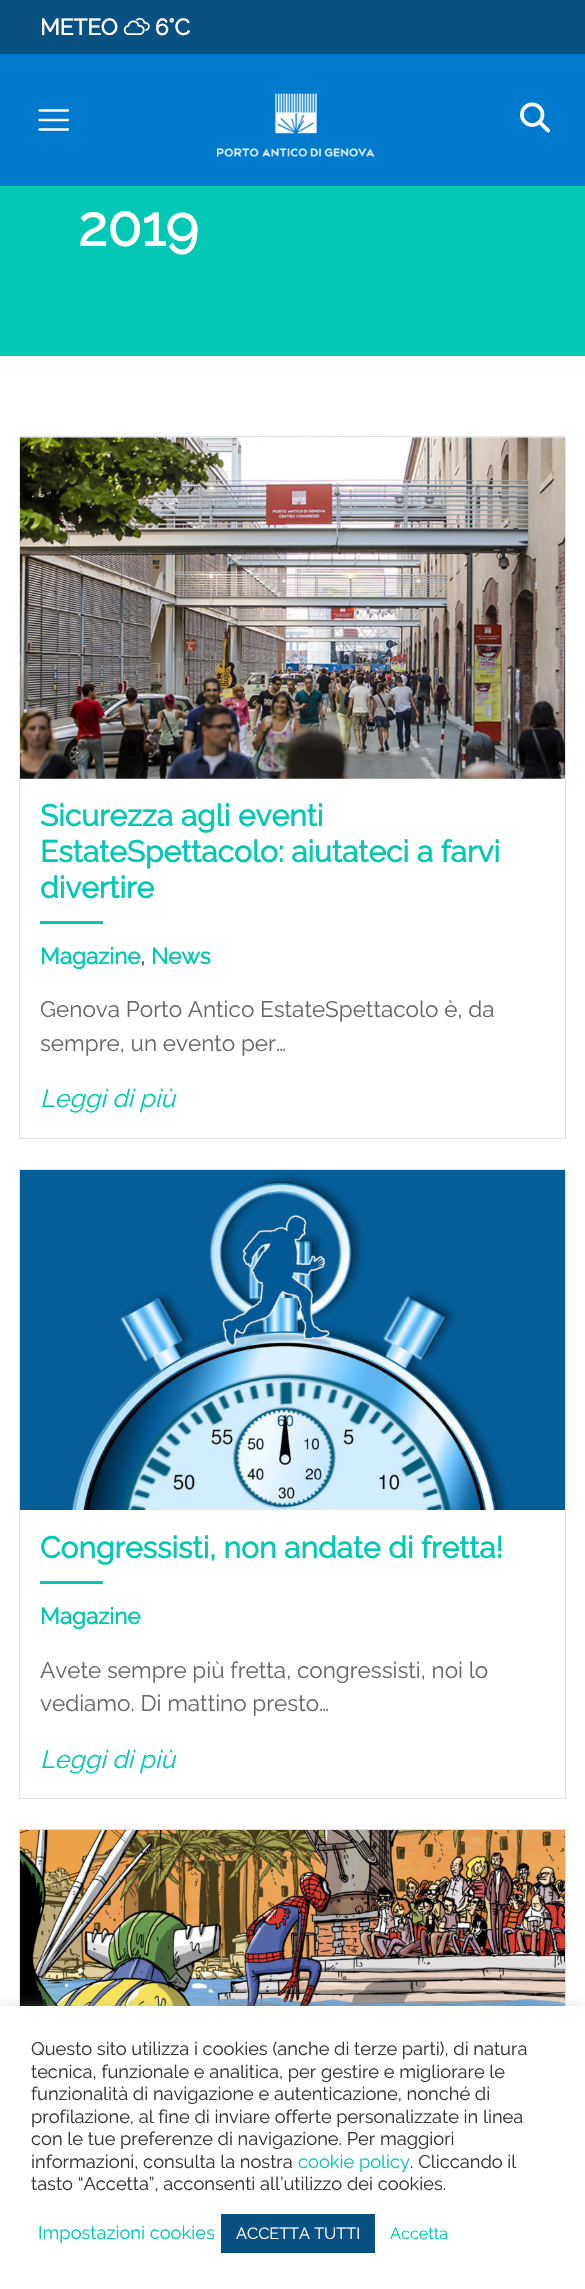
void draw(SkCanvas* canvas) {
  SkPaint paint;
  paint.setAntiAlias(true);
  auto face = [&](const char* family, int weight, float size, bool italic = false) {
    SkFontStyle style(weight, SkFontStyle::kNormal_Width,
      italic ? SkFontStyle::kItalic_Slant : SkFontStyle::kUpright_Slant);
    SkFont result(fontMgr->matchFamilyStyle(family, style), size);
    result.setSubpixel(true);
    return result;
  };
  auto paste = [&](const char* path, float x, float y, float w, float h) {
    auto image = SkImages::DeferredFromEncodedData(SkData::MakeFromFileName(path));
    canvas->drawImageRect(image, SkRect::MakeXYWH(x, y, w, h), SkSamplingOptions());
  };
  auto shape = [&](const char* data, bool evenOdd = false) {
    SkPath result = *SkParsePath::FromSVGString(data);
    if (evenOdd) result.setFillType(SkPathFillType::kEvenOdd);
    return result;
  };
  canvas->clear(0xffffffff);
  paint.setColor(0xff095083);
  canvas->drawRect(SkRect::MakeXYWH(0, 0, 585, 54), paint);
  paste("img/1.png", 123, 17, 27, 18);
  paint.setColor(0xff007acc);
  canvas->drawRect(SkRect::MakeXYWH(0, 54, 585, 132), paint);
  paint.setStroke(true);
  paint.setStrokeWidth(2.3f);
  paint.setStrokeCap(SkPaint::kRound_Cap);
  paint.setColor(0xffffffff);
  canvas->drawPath(shape("M39.5 110.5H68M39.5 120H68M39.5 129.5H68"), paint);
  paste("img/2.png", 217, 93, 158, 64);
  paste("img/3.png", 520, 102, 30, 31);
  paint.setStroke(false);
  paint.setColor(0xff02c8b4);
  canvas->drawRect(SkRect::MakeXYWH(0, 186, 585, 170), paint);
  paint.setStroke(true);
  paint.setStrokeWidth(1);
  paint.setStrokeCap(SkPaint::kButt_Cap);
  paint.setColor(0xffdee2e6);
  canvas->drawRect(SkRect::MakeXYWH(19.5f, 436.5f, 546, 702), paint);
  paste("img/4.png", 20, 437, 545, 342);
  paint.setStroke(false);
  paint.setColor(0xff02c8b4);
  canvas->drawRect(SkRect::MakeXYWH(40, 921, 63, 3), paint);
  paint.setStroke(true);
  paint.setColor(0xffdee2e6);
  canvas->drawRect(SkRect::MakeXYWH(19.5f, 1169.5f, 546, 629), paint);
  paste("img/5.png", 20, 1170, 545, 340);
  paint.setStroke(false);
  paint.setColor(0xff02c8b4);
  canvas->drawRect(SkRect::MakeXYWH(40, 1581, 63, 3), paint);
  paint.setStroke(true);
  paint.setColor(0xffdee2e6);
  canvas->drawRect(SkRect::MakeXYWH(19.5f, 1829.5f, 546, 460), paint);
  paste("img/6.png", 20, 1830, 545, 176);
  paint.setStroke(false);
  paint.setColor(0x4dacabab);
  paint.setMaskFilter(SkMaskFilter::MakeBlur(kNormal_SkBlurStyle, 6));
  canvas->drawRect(SkRect::MakeXYWH(0, 2005, 585, 284), paint);
  paint.setMaskFilter(nullptr);
  paint.setColor(0xffffffff);
  canvas->drawRect(SkRect::MakeXYWH(0, 2006, 585, 283), paint);
  paint.setColor(0xff095083);
  canvas->drawRect(SkRect::MakeXYWH(221, 2214, 154, 39), paint);
  auto f0 = face("Raleway", 700, 22.5f);
  paint.setColor(0xffffffff);
  canvas->drawString("METEO", 40, 35, f0, paint);
  canvas->drawString("6°C", 155, 35, f0, paint);
  auto f1 = face("Raleway", 700, 56);
  canvas->drawString("2019", 78, 246, f1, paint);
  auto f2 = face("Raleway", 700, 30);
  paint.setColor(0xff02c8b4);
  {
    const struct { const char* s; float x, y; } items[] = {
      {"Sicurezza agli eventi", 40, 826},
      {"EstateSpettacolo: aiutateci a farvi", 40, 862},
      {"divertire", 40, 898},
    };
    for (auto [s, x, y] : items) {
      canvas->drawString(s, x, y, f2, paint);
    }
  }
  canvas->drawString("Magazine", 40, 964, f0, paint);
  paint.setColor(0xff666666);
  canvas->drawString(",", 140, 964, f0, paint);
  paint.setColor(0xff02c8b4);
  canvas->drawString("News", 151, 964, f0, paint);
  auto f3 = face("Raleway", 100, 22.5f);
  paint.setColor(0xff666666);
  canvas->drawString("Genova Porto Antico EstateSpettacolo è, da", 40, 1017, f3, paint);
  canvas->drawString("sempre, un evento per…", 40, 1051, f3, paint);
  auto f4 = face("Raleway", 100, 25, true);
  paint.setColor(0xff02c8b4);
  canvas->drawString("Leggi di più", 40, 1107, f4, paint);
  canvas->drawString("Congressisti, non andate di fretta!", 40, 1558, f2, paint);
  canvas->drawString("Magazine", 40, 1624, f0, paint);
  paint.setColor(0xff666666);
  canvas->drawString("Avete sempre più fretta, congressisti, noi lo", 40, 1678, f3, paint);
  canvas->drawString("vediamo. Di mattino presto…", 40, 1711, f3, paint);
  paint.setColor(0xff02c8b4);
  canvas->drawString("Leggi di più", 40, 1768, f4, paint);
  auto f5 = face("Raleway", 100, 18.3f);
  paint.setColor(0xff333333);
  {
    const struct { const char* s; float x, y; } items[] = {
      {"Questo sito utilizza i cookies (anche di terze parti), di natura", 31, 2055},
      {"tecnica, funzionale e analitica, per gestire e migliorare le", 31, 2078},
      {"funzionalità di navigazione e autenticazione, nonché di", 31, 2100},
      {"profilazione, al fine di inviare offerte personalizzate in linea", 31, 2123},
      {"con le tue preferenze di navigazione. Per maggiori", 31, 2145},
      {"informazioni, consulta la nostra", 31, 2168},
    };
    for (auto [s, x, y] : items) {
      canvas->drawString(s, x, y, f5, paint);
    }
  }
  paint.setColor(0xff02c8b4);
  canvas->drawString("cookie policy", 298, 2168, f5, paint);
  paint.setColor(0xff333333);
  canvas->drawString(". Cliccando il", 410, 2168, f5, paint);
  canvas->drawString("tasto “Accetta”, acconsenti all’utilizzo dei cookies.", 31, 2190, f5, paint);
  paint.setColor(0xff02c8b4);
  canvas->drawString("Impostazioni cookies", 38, 2239, f5, paint);
  auto f6 = face("Raleway", 100, 16.25f);
  paint.setColor(0xffffffff);
  canvas->drawString("ACCETTA TUTTI", 236, 2239, f6, paint);
  paint.setColor(0xff02c8b4);
  canvas->drawString("Accetta", 390, 2239, f6, paint);
}
